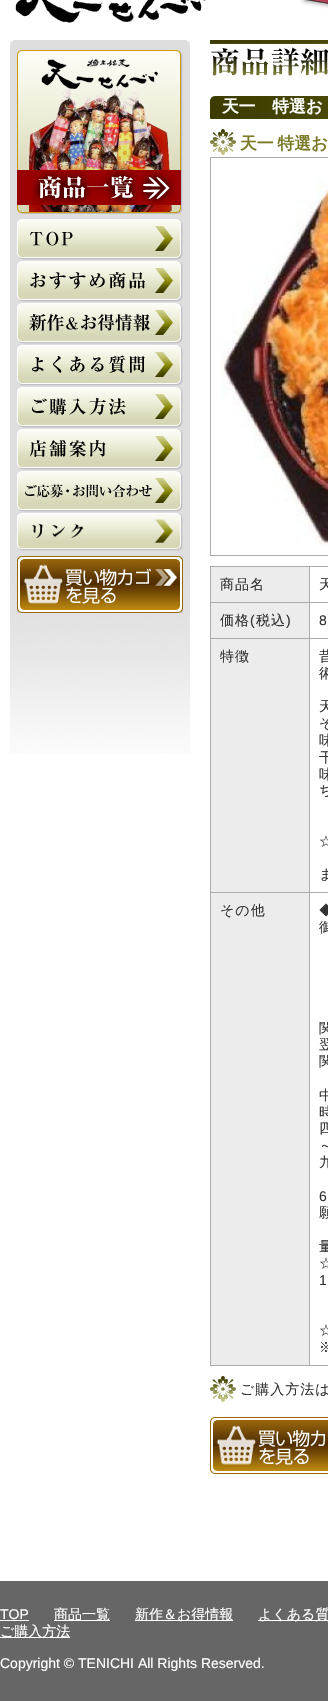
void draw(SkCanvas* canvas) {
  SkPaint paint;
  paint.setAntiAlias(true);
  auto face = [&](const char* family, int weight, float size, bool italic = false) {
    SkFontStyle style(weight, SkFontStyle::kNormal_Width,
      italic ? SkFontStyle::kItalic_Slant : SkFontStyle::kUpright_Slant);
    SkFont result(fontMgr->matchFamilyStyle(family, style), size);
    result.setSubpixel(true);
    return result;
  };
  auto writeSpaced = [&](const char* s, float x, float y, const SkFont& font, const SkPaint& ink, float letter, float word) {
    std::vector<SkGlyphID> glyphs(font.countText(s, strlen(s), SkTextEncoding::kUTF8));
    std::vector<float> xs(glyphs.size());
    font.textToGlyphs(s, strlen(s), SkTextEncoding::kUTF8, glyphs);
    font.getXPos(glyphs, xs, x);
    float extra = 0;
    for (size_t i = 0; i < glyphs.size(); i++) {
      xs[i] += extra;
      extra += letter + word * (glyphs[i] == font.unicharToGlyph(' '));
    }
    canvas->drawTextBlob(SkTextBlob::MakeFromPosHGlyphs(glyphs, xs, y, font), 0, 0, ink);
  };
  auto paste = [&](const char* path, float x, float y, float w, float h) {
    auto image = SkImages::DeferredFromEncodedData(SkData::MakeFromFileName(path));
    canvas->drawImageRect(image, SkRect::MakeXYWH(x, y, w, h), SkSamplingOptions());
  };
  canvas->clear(0xffffffff);
  paste("img/1.png", 299, 0, 29, 9);
  paste("img/2.png", 15, 0, 191, 23);
  paste("img/3.png", 10, 40, 180, 713);
  paste("img/4.png", 17, 50, 166, 164);
  paste("img/5.png", 17, 219, 166, 41);
  paste("img/6.png", 17, 261, 166, 41);
  paste("img/7.png", 17, 303, 166, 41);
  paste("img/8.png", 17, 345, 166, 41);
  paste("img/9.png", 17, 387, 166, 41);
  paste("img/10.png", 17, 429, 166, 41);
  paste("img/11.png", 17, 471, 166, 41);
  paste("img/12.png", 17, 513, 166, 38);
  paste("img/13.png", 17, 556, 166, 57);
  paste("img/14.png", 210, 40, 118, 36);
  paste("img/15.png", 210, 96, 118, 23);
  paste("img/16.png", 210, 129, 26, 26);
  paint.setStroke(true);
  paint.setStrokeWidth(1);
  paint.setColor(0xffababab);
  canvas->drawRect(SkRect::MakeXYWH(210.5f, 157.5f, 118, 398), paint);
  paste("img/17.png", 221, 179, 107, 366);
  paint.setStroke(false);
  {
    const struct { float x, y, w, h; SkColor color; } items[] = {
      {210, 566, 118, 1, 0xffababab},
      {211, 567, 98, 35, 0xffececec},
      {210, 602, 118, 1, 0xffababab},
      {210, 567, 1, 36, 0xffababab},
      {309, 567, 1, 36, 0xffababab},
      {211, 603, 98, 35, 0xffececec},
      {210, 638, 118, 1, 0xffababab},
      {210, 603, 1, 36, 0xffababab},
      {309, 603, 1, 36, 0xffababab},
      {211, 639, 98, 253, 0xffececec},
      {210, 892, 118, 1, 0xffababab},
      {210, 639, 1, 254, 0xffababab},
      {309, 639, 1, 254, 0xffababab},
      {211, 893, 98, 472, 0xffececec},
      {210, 1365, 118, 1, 0xffababab},
      {210, 893, 1, 473, 0xffababab},
      {309, 893, 1, 473, 0xffababab},
    };
    for (auto [x, y, w, h, color] : items) {
      paint.setColor(color);
      canvas->drawRect(SkRect::MakeXYWH(x, y, w, h), paint);
    }
  }
  paste("img/16.png", 210, 1376, 26, 26);
  paste("img/18.png", 210, 1417, 118, 57);
  {
    const struct { float x, y, w, h; SkColor color; } items[] = {
      {0, 1581, 328, 120, 0xff666666},
      {0, 1620, 29, 1, 0xffffffff},
      {54, 1620, 56, 1, 0xffffffff},
      {135, 1620, 98, 1, 0xffffffff},
      {258, 1620, 70, 1, 0xffffffff},
      {0, 1637, 70, 1, 0xffffffff},
    };
    for (auto [x, y, w, h, color] : items) {
      paint.setColor(color);
      canvas->drawRect(SkRect::MakeXYWH(x, y, w, h), paint);
    }
  }
  auto f0 = face("WenQuanYi Zen Hei", 700, 16.75f);
  canvas->drawString("天一　特選お", 222, 112, f0, paint);
  paint.setColor(0xff7a7a29);
  writeSpaced("天一 特選お", 240, 149, f0, paint, 0, -1);
  auto f1 = face("WenQuanYi Zen Hei", 500, 14);
  paint.setColor(0xff333333);
  {
    const struct { const char* s; float x, y; } items[] = {
      {"商品名", 220, 589},
      {"天", 319, 589},
      {"価格", 220, 625},
    };
    for (auto [s, x, y] : items) {
      writeSpaced(s, x, y, f1, paint, 1, 0);
    }
  }
  auto f2 = face("Liberation Sans", 400, 14);
  writeSpaced("(", 250, 625, f2, paint, 1, 0);
  writeSpaced("税込", 256, 625, f1, paint, 1, 0);
  writeSpaced(")", 286, 625, f2, paint, 1, 0);
  writeSpaced("8", 319, 625, f2, paint, 1, 0);
  {
    const struct { const char* s; float x, y; } items[] = {
      {"特徴", 220, 661},
      {"昔", 319, 661},
      {"術", 319, 678},
      {"天", 319, 711},
      {"そ", 319, 728},
      {"味", 319, 745},
      {"干", 319, 762},
      {"味", 319, 779},
      {"ち", 319, 795},
      {"☆", 319, 846},
      {"ま", 319, 879},
      {"その他", 220, 915},
      {"◆", 319, 915},
      {"御", 319, 932},
      {"関", 319, 1033},
      {"翌", 319, 1049},
      {"関", 319, 1066},
      {"中", 319, 1100},
      {"時", 319, 1117},
      {"四", 319, 1133},
      {"～", 319, 1150},
      {"九", 319, 1167},
    };
    for (auto [s, x, y] : items) {
      writeSpaced(s, x, y, f1, paint, 1, 0);
    }
  }
  writeSpaced("6", 319, 1201, f2, paint, 1, 0);
  {
    const struct { const char* s; float x, y; } items[] = {
      {"願", 319, 1217},
      {"量", 319, 1251},
      {"☆", 319, 1268},
    };
    for (auto [s, x, y] : items) {
      writeSpaced(s, x, y, f1, paint, 1, 0);
    }
  }
  writeSpaced("1", 319, 1285, f2, paint, 1, 0);
  {
    const struct { const char* s; float x, y; } items[] = {
      {"☆", 319, 1335},
      {"※", 319, 1352},
      {"ご購入方法は", 240, 1394},
    };
    for (auto [s, x, y] : items) {
      writeSpaced(s, x, y, f1, paint, 1, 0);
    }
  }
  paint.setColor(0xffffffff);
  canvas->drawString("TOP", 0, 1619, f2, paint);
  {
    const struct { const char* s; float x, y; } items[] = {
      {"商品一覧", 54, 1619},
      {"新作＆お得情報", 135, 1619},
      {"よくある質", 258, 1619},
      {"ご購入方法", 0, 1636},
    };
    for (auto [s, x, y] : items) {
      canvas->drawString(s, x, y, f1, paint);
    }
  }
  canvas->drawString("Copyright © TENICHI All Rights Reserved.", 0, 1668, f2, paint);
}
